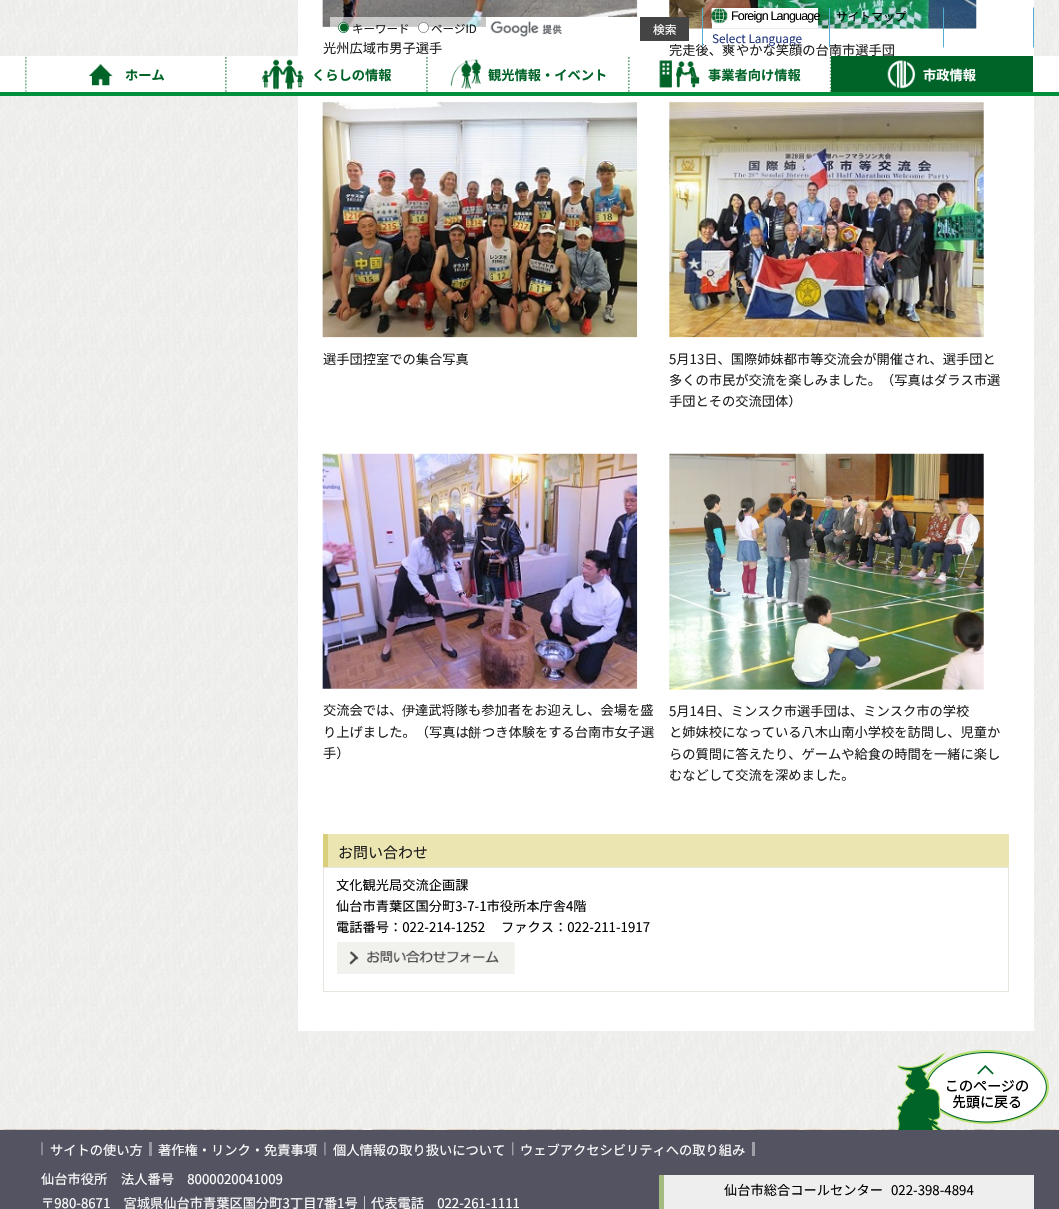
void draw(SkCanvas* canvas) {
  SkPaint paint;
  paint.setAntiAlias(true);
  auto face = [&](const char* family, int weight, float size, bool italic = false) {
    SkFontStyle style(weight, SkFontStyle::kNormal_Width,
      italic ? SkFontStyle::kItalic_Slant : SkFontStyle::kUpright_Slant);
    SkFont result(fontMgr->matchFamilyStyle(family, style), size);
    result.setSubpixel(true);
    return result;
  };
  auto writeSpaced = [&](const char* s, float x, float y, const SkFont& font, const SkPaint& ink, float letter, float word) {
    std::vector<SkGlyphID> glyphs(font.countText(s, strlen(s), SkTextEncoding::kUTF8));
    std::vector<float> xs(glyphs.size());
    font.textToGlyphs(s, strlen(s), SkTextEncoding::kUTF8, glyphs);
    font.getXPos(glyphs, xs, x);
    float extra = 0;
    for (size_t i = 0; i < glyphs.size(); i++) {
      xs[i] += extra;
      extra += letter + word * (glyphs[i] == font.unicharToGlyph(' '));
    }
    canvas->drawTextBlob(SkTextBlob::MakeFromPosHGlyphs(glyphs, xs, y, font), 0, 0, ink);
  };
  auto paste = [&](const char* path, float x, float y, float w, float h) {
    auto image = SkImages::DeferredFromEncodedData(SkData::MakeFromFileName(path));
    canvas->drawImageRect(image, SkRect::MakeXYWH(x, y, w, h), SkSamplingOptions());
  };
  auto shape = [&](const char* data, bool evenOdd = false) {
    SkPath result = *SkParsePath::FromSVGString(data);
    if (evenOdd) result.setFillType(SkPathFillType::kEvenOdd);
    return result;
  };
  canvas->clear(0xffffffff);
  paste("img/25.png", 0, 1129, 1059, 1);
  paste("img/13.png", 0, 0, 1059, 1130);
  paint.setColor(0xffffffff);
  canvas->drawRect(SkRect::MakeXYWH(298, 0, 736, 1031), paint);
  paste("img/14.png", 322, 0, 316, 27);
  paint.setColor(0x99ffffff);
  canvas->drawRect(SkRect::MakeXYWH(330, 17, 156, 10), paint);
  paint.setColor(0xffffffff);
  canvas->drawCircle(343.5f, 27.5f, 5.1f, paint);
  paint.setStroke(true);
  paint.setStrokeWidth(0.8f);
  paint.setColor(0xff006428);
  canvas->drawCircle(343.5f, 27.5f, 5.1f, paint);
  paint.setStroke(false);
  canvas->drawCircle(344, 27.5f, 4, paint);
  paint.setColor(0xffffffff);
  canvas->drawCircle(423.5f, 27.5f, 5.1f, paint);
  paint.setStroke(true);
  paint.setColor(0xff767676);
  canvas->drawCircle(423.5f, 27.5f, 5.1f, paint);
  paint.setStroke(false);
  paint.setColor(0xffffffff);
  canvas->drawRect(SkRect::MakeXYWH(486, 17, 152, 10), paint);
  paste("img/1.png", 490, 21, 72, 16);
  paste("img/15.png", 669, 0, 308, 29);
  paint.setColor(0xff444444);
  canvas->drawRect(SkRect::MakeXYWH(640, 17, 49, 24), paint);
  paint.setColor(0xffffffff);
  canvas->drawRect(SkRect::MakeXYWH(712, 8, 106, 20), paint);
  paste("img/2.png", 711, 8, 17, 16);
  paint.setColor(0xffe9e9e9);
  canvas->drawRect(SkRect::MakeXYWH(712, 28, 106, 1), paint);
  paint.setColor(0xff54add1);
  canvas->drawPath(shape("M1034 7V48L1033 47V8Z"), paint);
  canvas->drawPath(shape("M943 48V7L944 8V47Z"), paint);
  paint.setColor(0xff008f3a);
  canvas->drawRect(SkRect::MakeXYWH(0, 92, 1059, 4), paint);
  paste("img/16.png", 322, 102, 316, 236);
  paste("img/17.png", 669, 102, 315, 236);
  paste("img/18.png", 322, 453, 316, 236);
  paste("img/19.png", 669, 453, 315, 237);
  paint.setColor(0xffebe5b1);
  canvas->drawRect(SkRect::MakeXYWH(328, 834, 681, 33), paint);
  paint.setColor(0xffd9ce7b);
  canvas->drawRect(SkRect::MakeXYWH(323, 834, 5, 33), paint);
  paint.setStroke(true);
  paint.setColor(0xffe0e0d8);
  canvas->drawRect(SkRect::MakeXYWH(323.4f, 867.4f, 685.2f, 124.2f), paint);
  paste("img/20.png", 337, 942, 178, 32);
  paint.setStroke(false);
  paint.setColor(0xff535362);
  canvas->drawRect(SkRect::MakeXYWH(0, 1130, 1059, 79), paint);
  paste("img/21.png", 41, 1142, 2, 14);
  paint.setColor(0xff9898a2);
  canvas->drawRect(SkRect::MakeXYWH(149, 1142, 3, 14), paint);
  paste("img/22.png", 324, 1142, 2, 14);
  paste("img/23.png", 512, 1142, 2, 14);
  {
    const struct { float x, y, w, h; SkColor color; } items[] = {
      {752, 1142, 3, 14, 0xffa0a0a9},
      {664, 1175, 370, 34, 0xffeeeeee},
      {659, 1175, 5, 34, 0xffa5ba7f},
    };
    for (auto [x, y, w, h, color] : items) {
      paint.setColor(color);
      canvas->drawRect(SkRect::MakeXYWH(x, y, w, h), paint);
    }
  }
  paste("img/24.png", 897, 1050, 152, 80);
  auto f0 = face("Noto Sans JP", 400, 11.5f);
  paint.setColor(0xff1f1f1f);
  canvas->drawString("キーワード", 352, 33, f0, paint);
  canvas->drawString("ページID", 431, 33, f0, paint);
  auto f1 = face("Noto Sans JP", 400, 11.75f);
  paint.setColor(0xffffffff);
  canvas->drawString("検索", 653, 34, f1, paint);
  auto f2 = face("Liberation Sans", 400, 12.5f);
  paint.setColor(0xff000000);
  writeSpaced("Foreign Language", 731, 20, f2, paint, -0.8f, 0);
  paint.setColor(0xff24397f);
  canvas->drawString("Select Language", 712, 43, f1, paint);
  paint.setColor(0xff000000);
  canvas->drawString("サイトマップ", 836, 21, f1, paint);
  auto f3 = face("Noto Sans JP", 400, 13.25f);
  paint.setColor(0xff1f1f1f);
  canvas->drawString("光州広域市男子選手", 323, 53, f3, paint);
  canvas->drawString("完走後、", 669, 55, f3, paint);
  paint.setColor(0xff54add1);
  canvas->drawRect(SkRect::MakeXYWH(702, 8, 1, 38), paint);
  auto f4 = face("WenQuanYi Zen Hei", 500, 13.25f);
  paint.setColor(0xff1f1f1f);
  canvas->drawString("爽", 722, 55, f4, paint);
  canvas->drawString("やかな笑顔の台南市選手団", 736, 55, f3, paint);
  paint.setColor(0xffffffff);
  canvas->drawRect(SkRect::MakeXYWH(0, 56, 1059, 36), paint);
  paint.setColor(0xff006428);
  canvas->drawRect(SkRect::MakeXYWH(831, 56, 202, 36), paint);
  auto f5 = face("Noto Sans JP", 700, 13.25f);
  paint.setColor(0xffffffff);
  canvas->drawString("市政情報", 923, 80, f5, paint);
  paste("img/12.png", 887, 60, 29, 29);
  paint.setColor(0xff006428);
  canvas->drawString("事業者向け情報", 708, 80, f5, paint);
  paste("img/11.png", 659, 60, 41, 28);
  paste("img/10.png", 829, 57, 2, 35);
  canvas->drawString("観光情報・イベント", 488, 80, f5, paint);
  paste("img/9.png", 450, 59, 31, 30);
  paste("img/8.png", 627, 57, 3, 35);
  canvas->drawString("くらしの情報", 312, 80, f5, paint);
  paste("img/7.png", 262, 59, 42, 31);
  paste("img/6.png", 426, 57, 2, 35);
  canvas->drawString("ホーム", 125, 80, f5, paint);
  paste("img/5.png", 88, 63, 25, 23);
  paste("img/4.png", 225, 57, 2, 35);
  paste("img/3.png", 25, 56, 2, 36);
  paint.setColor(0xff54add1);
  canvas->drawRect(SkRect::MakeXYWH(829, 8, 1, 39), paint);
  paint.setColor(0xff1f1f1f);
  {
    const struct { const char* s; float x, y; } items[] = {
      {"選手団控室での集合写真", 323, 364},
      {"5月13日、国際姉妹都市等交流会が開催され、選手団と", 669, 364},
      {"多くの市民が交流を楽しみました。（写真はダラス市選", 669, 385},
      {"手団とその交流団体）", 669, 406},
      {"交流会では、", 323, 715},
    };
    for (auto [s, x, y] : items) {
      canvas->drawString(s, x, y, f3, paint);
    }
  }
  canvas->drawString("伊", 402, 715, f4, paint);
  canvas->drawString("達武将隊も参加者をお迎えし、会場を盛", 415, 715, f3, paint);
  canvas->drawString("り上げました。（写真は", 323, 737, f3, paint);
  canvas->drawString("餅", 468, 737, f4, paint);
  {
    const struct { const char* s; float x, y; } items[] = {
      {"つき体験をする台南市女子選", 482, 737},
      {"手）", 323, 758},
      {"5月14日、ミンスク市選手団は、ミンスク市の学校", 669, 716},
      {"と姉妹校になっている八木山南小学校を訪問し、児童か", 669, 737},
      {"らの質問に答えたり、ゲームや給食の時間を一緒に楽し", 669, 759},
      {"むなどして交流を深めました。", 669, 780},
    };
    for (auto [s, x, y] : items) {
      canvas->drawString(s, x, y, f3, paint);
    }
  }
  auto f6 = face("Noto Sans JP", 400, 15);
  canvas->drawString("お問い合わせ", 338, 858, f6, paint);
  paint.setColor(0xff000000);
  {
    const struct { const char* s; float x, y; } items[] = {
      {"文化観光局交流企画課", 336, 890},
      {"仙台市青葉区国分町3-7-1市役所本庁舎4階", 336, 911},
      {"電話番号：022-214-1252", 336, 932},
      {"ファクス：022-211-1917", 501, 932},
    };
    for (auto [s, x, y] : items) {
      canvas->drawString(s, x, y, f3, paint);
    }
  }
  paint.setColor(0xffffffff);
  {
    const struct { const char* s; float x, y; } items[] = {
      {"サイトの使い方", 50, 1155},
      {"著作権・リンク・免責事項", 158, 1155},
      {"個人情報の取り扱いについて", 333, 1155},
      {"ウェブアクセシビリティへの取り組み", 520, 1155},
      {"仙台市役所", 41, 1184},
      {"法人番号　8000020041009", 121, 1184},
      {"〒980-8671　宮城県仙台市青葉区国分町3丁目7番1号｜代表電話　022-261-1111", 41, 1208},
    };
    for (auto [s, x, y] : items) {
      canvas->drawString(s, x, y, f3, paint);
    }
  }
  paint.setColor(0xff000000);
  canvas->drawString("仙台市総合コールセンター", 724, 1195, f3, paint);
  canvas->drawString("022-398-4894", 891, 1195, f3, paint);
}
